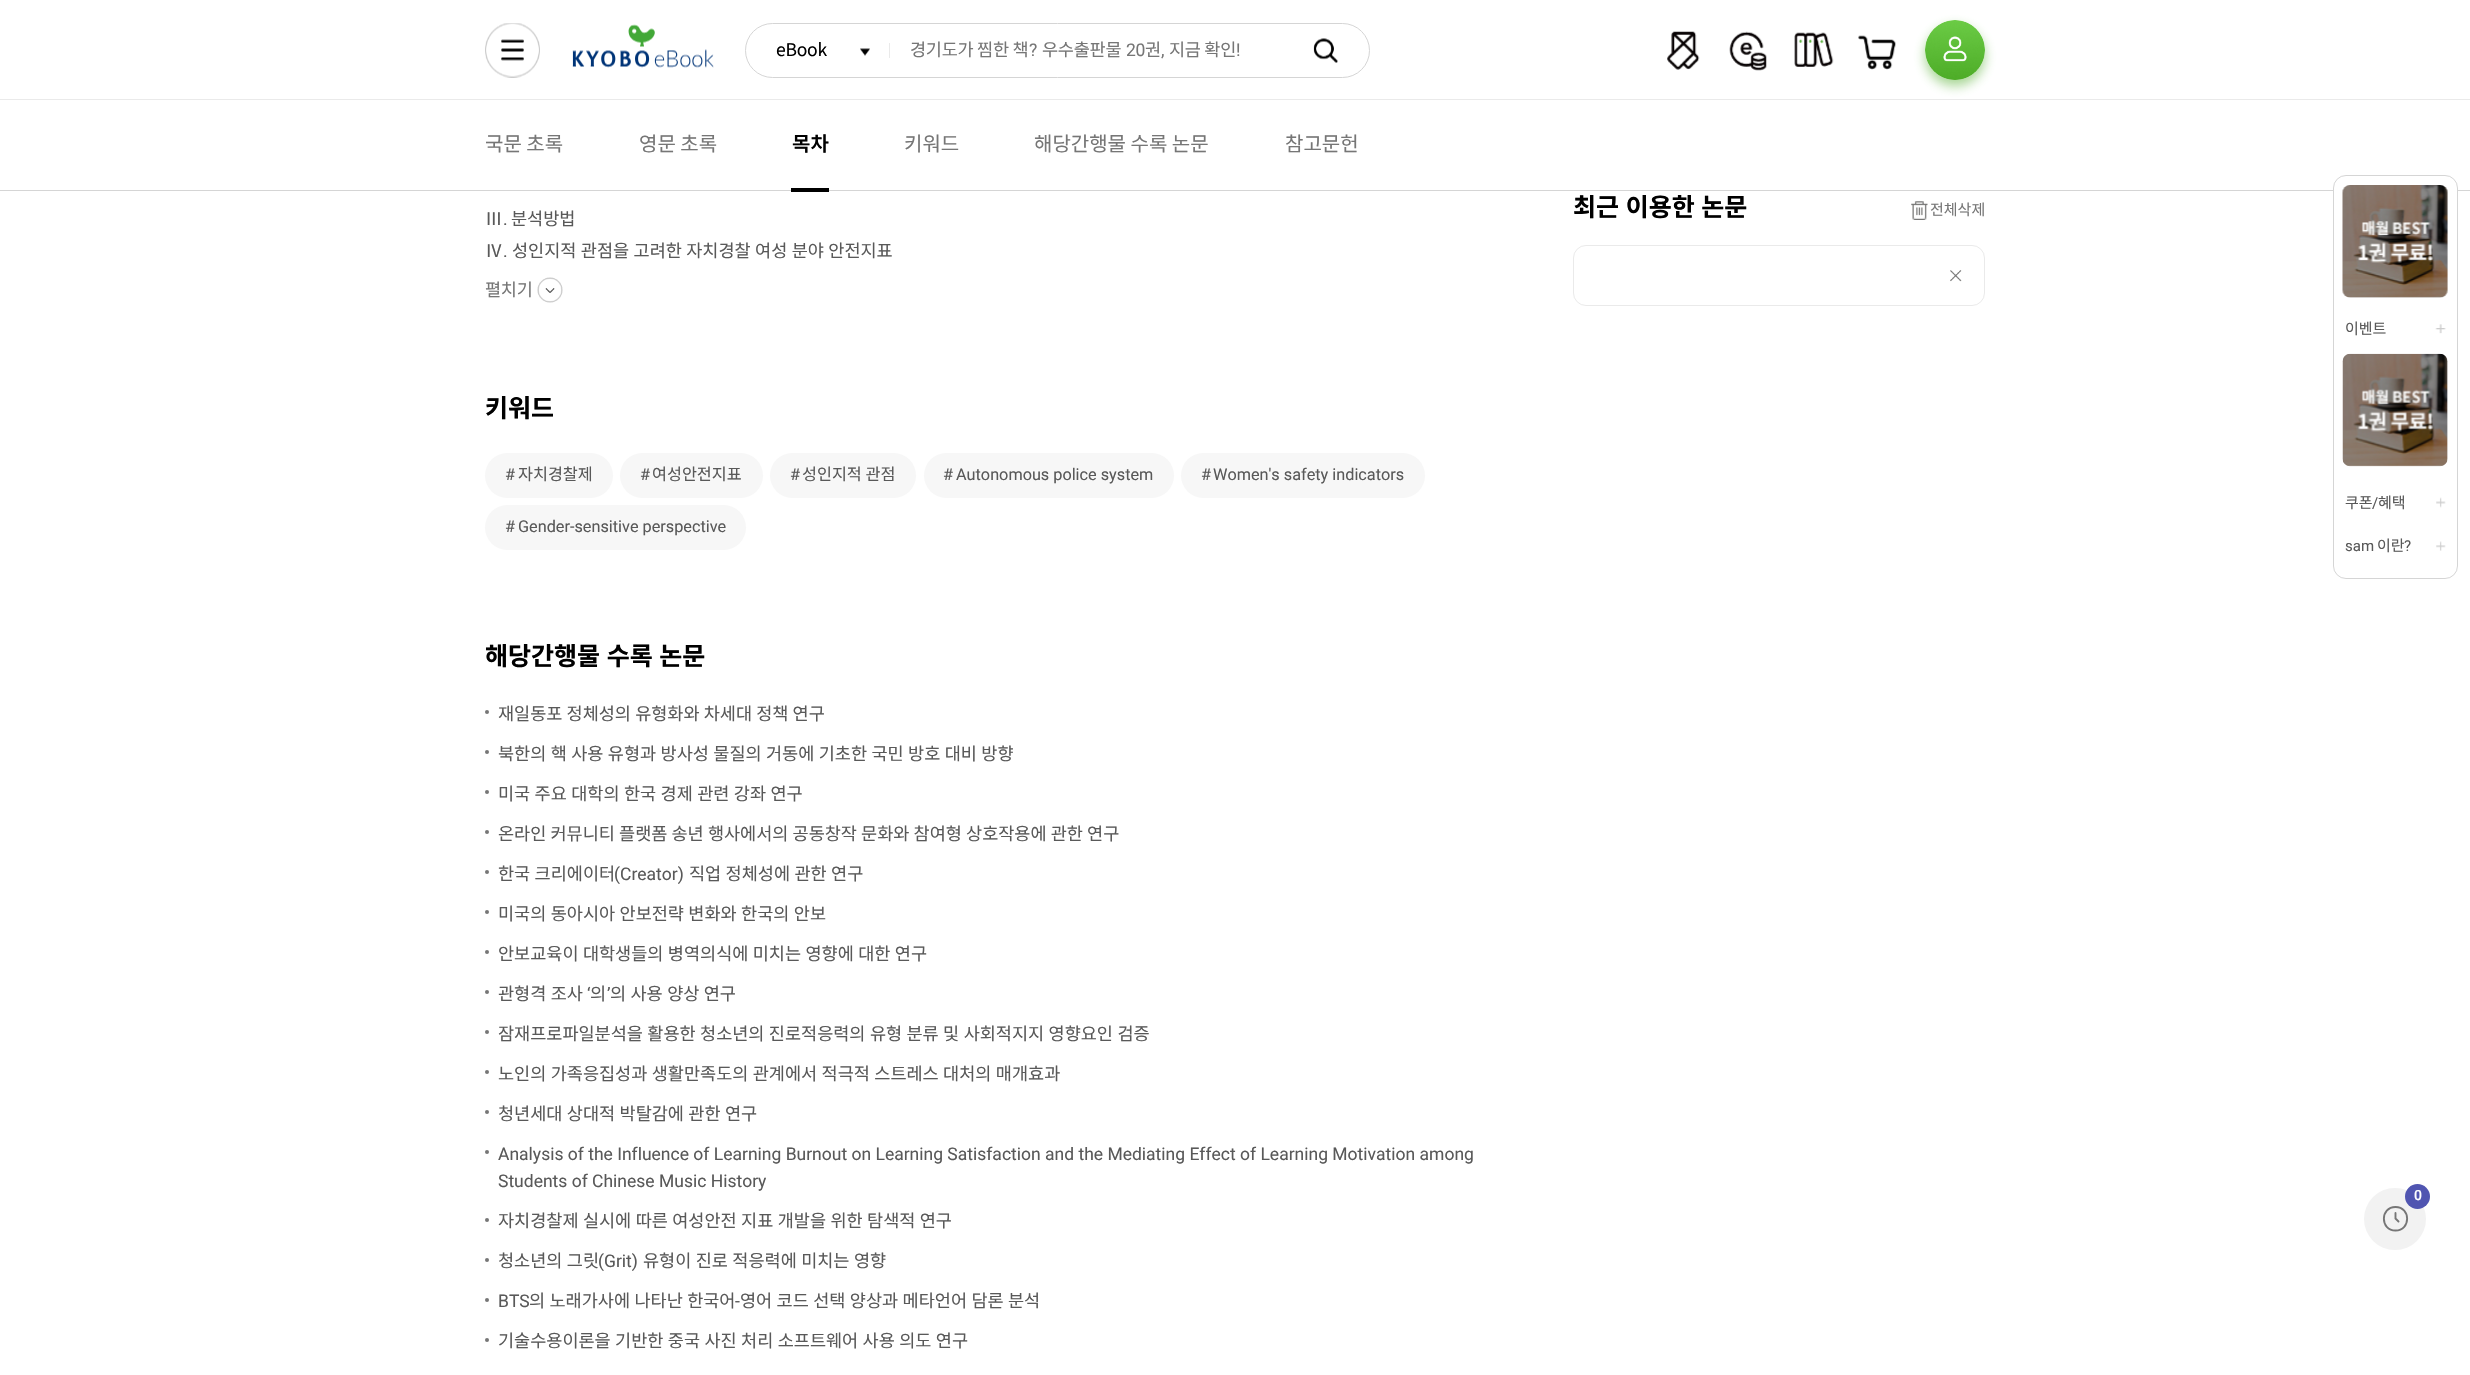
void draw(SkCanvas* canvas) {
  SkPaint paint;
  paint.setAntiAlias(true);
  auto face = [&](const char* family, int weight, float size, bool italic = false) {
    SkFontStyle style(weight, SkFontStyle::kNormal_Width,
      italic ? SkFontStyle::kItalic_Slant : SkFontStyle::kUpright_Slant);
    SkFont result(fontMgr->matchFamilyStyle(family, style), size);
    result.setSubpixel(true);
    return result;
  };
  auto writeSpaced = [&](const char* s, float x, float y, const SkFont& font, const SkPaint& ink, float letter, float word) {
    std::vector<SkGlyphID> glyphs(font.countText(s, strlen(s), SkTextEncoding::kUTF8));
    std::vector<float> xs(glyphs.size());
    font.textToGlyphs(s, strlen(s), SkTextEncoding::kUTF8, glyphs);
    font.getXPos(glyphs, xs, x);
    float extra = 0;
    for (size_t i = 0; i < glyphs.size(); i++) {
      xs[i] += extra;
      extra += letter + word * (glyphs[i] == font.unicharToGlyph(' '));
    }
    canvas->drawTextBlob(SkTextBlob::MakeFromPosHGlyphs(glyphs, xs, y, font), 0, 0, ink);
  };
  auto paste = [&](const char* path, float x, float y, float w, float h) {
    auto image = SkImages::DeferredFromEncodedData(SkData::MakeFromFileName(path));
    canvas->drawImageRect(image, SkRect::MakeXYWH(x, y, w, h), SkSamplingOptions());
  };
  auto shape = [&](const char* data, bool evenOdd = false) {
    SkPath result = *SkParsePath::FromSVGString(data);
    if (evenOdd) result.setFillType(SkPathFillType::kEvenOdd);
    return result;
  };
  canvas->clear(0xffffffff);
  paint.setColor(0xffeaeaea);
  canvas->drawRect(SkRect::MakeXYWH(0, 99, 2470, 1), paint);
  paste("img/1.png", 485, 23, 55, 55);
  paste("img/2.png", 572, 24, 142, 44);
  paint.setStroke(true);
  paint.setStrokeWidth(1);
  paint.setColor(0xffd5d5d5);
  canvas->drawRoundRect(SkRect::MakeXYWH(745.5f, 23.5f, 624, 54), 27, 27, paint);
  paste("img/3.png", 860, 48, 10, 8);
  paint.setStroke(false);
  paint.setColor(0xffeaeaea);
  canvas->drawRect(SkRect::MakeXYWH(889, 43, 1, 15), paint);
  paste("img/4.png", 1313, 38, 25, 25);
  paste("img/5.png", 1667, 31, 33, 39);
  paste("img/6.png", 1729, 31, 38, 40);
  paste("img/7.png", 1794, 32, 40, 35);
  paste("img/8.png", 1858, 35, 38, 35);
  paint.setColor(0x804dac27);
  paint.setMaskFilter(SkMaskFilter::MakeBlur(kNormal_SkBlurStyle, 6));
  canvas->drawRoundRect(SkRect::MakeXYWH(1925, 26, 60, 60), 30, 30, paint);
  paint.setMaskFilter(nullptr);
  paste("img/9.png", 1925, 20, 60, 60);
  paint.setColor(0xffd5d5d5);
  canvas->drawRect(SkRect::MakeXYWH(0, 190, 2470, 1), paint);
  paint.setColor(0xff000000);
  canvas->drawRect(SkRect::MakeXYWH(791, 188, 38, 4), paint);
  paste("img/10.png", 1911, 201, 17, 19);
  paint.setStroke(true);
  paint.setColor(0xffeaeaea);
  canvas->drawRoundRect(SkRect::MakeXYWH(1573.5f, 245.5f, 411, 60), 12.5f, 12.5f, paint);
  paste("img/11.png", 1950, 270, 12, 12);
  paste("img/12.png", 537, 277, 26, 26);
  paint.setStroke(false);
  paint.setColor(0xfff7f7f7);
  canvas->drawRoundRect(SkRect::MakeXYWH(485, 453, 128, 45), 22.5f, 22.5f, paint);
  canvas->drawRoundRect(SkRect::MakeXYWH(620, 453, 143, 45), 22.5f, 22.5f, paint);
  canvas->drawRoundRect(SkRect::MakeXYWH(770, 453, 146, 45), 22.5f, 22.5f, paint);
  canvas->drawRoundRect(SkRect::MakeXYWH(924, 453, 250, 45), 22.5f, 22.5f, paint);
  canvas->drawRoundRect(SkRect::MakeXYWH(1181, 453, 244, 45), 22.5f, 22.5f, paint);
  canvas->drawRoundRect(SkRect::MakeXYWH(485, 505, 261, 45), 22.5f, 22.5f, paint);
  paint.setColor(0xff767676);
  canvas->drawCircle(487, 712, 2, paint);
  canvas->drawCircle(487, 752, 2, paint);
  canvas->drawCircle(487, 792, 2, paint);
  canvas->drawCircle(487, 832, 2, paint);
  canvas->drawCircle(487, 872, 2, paint);
  canvas->drawCircle(487, 912, 2, paint);
  canvas->drawCircle(487, 952, 2, paint);
  canvas->drawCircle(487, 992, 2, paint);
  canvas->drawCircle(487, 1032, 2, paint);
  canvas->drawCircle(487, 1072, 2, paint);
  canvas->drawCircle(487, 1112, 2, paint);
  canvas->drawCircle(487, 1152, 2, paint);
  canvas->drawCircle(487, 1220, 2, paint);
  canvas->drawCircle(487, 1260, 2, paint);
  canvas->drawCircle(487, 1300, 2, paint);
  canvas->drawCircle(487, 1340, 2, paint);
  paint.setColor(0xffffffff);
  canvas->drawRoundRect(SkRect::MakeXYWH(2333.5f, 175.5f, 124, 403), 12.5f, 12.5f, paint);
  paint.setStroke(true);
  paint.setColor(0xffd5d5d5);
  canvas->drawRoundRect(SkRect::MakeXYWH(2333.5f, 175.5f, 124, 403), 12.5f, 12.5f, paint);
  paint.setStroke(false);
  paint.setColor(0xffeaeaea);
  canvas->drawRoundRect(SkRect::MakeXYWH(2343, 185, 105, 113), 8, 8, paint);
  paste("img/13.png", 2342, 185, 106, 113);
  paste("img/14.png", 2435, 324, 11, 10);
  canvas->drawRoundRect(SkRect::MakeXYWH(2343, 354, 105, 112), 8, 8, paint);
  paste("img/15.png", 2342, 353, 106, 114);
  paste("img/16.png", 2436, 497, 10, 11);
  paste("img/17.png", 2436, 541, 10, 10);
  paint.setColor(0xfff2f2f2);
  canvas->drawCircle(2395, 1219, 31, paint);
  paint.setStroke(true);
  paint.setStrokeWidth(1.9f);
  paint.setColor(0xff767676);
  canvas->drawPath(shape("M2395.5 1230.5C2411 1230.5 2411 1207 2395.5 1207C2380 1207 2380 1230.5 2395.5 1230.5Z"), paint);
  paint.setStroke(false);
  paint.setColor(0xff5055b1);
  canvas->drawCircle(2417.5f, 1196.5f, 12.5f, paint);
  paint.setStroke(true);
  paint.setStrokeCap(SkPaint::kRound_Cap);
  paint.setColor(0xff767676);
  canvas->drawPath(shape("M2395.5 1213V1218.5L2398.5 1221.5"), paint);
  auto f0 = face("Noto Sans KR", 400, 17.5f);
  paint.setStroke(false);
  paint.setColor(0xff000000);
  writeSpaced("eBook", 776, 56, f0, paint, -0.25f, 0);
  paint.setColor(0xff767676);
  writeSpaced("경기도가 찜한 책", 910, 56, f0, paint, -0.25f, 0);
  auto f1 = face("Roboto", 400, 17.5f);
  writeSpaced("?", 1029, 56, f1, paint, -0.25f, 0);
  writeSpaced("우수출판물", 1042, 56, f0, paint, -0.25f, 0);
  writeSpaced("20", 1126, 56, f1, paint, -0.25f, 0);
  writeSpaced("권", 1145, 56, f0, paint, -0.25f, 0);
  writeSpaced(",", 1161, 56, f1, paint, -0.25f, 0);
  writeSpaced("지금 확인", 1169, 56, f0, paint, -0.25f, 0);
  writeSpaced("!", 1236, 56, f1, paint, -0.25f, 0);
  auto f2 = face("Noto Sans KR", 400, 20);
  canvas->drawString("국문 초록", 485, 151, f2, paint);
  canvas->drawString("영문 초록", 639, 151, f2, paint);
  auto f3 = face("Noto Sans KR", 600, 20);
  paint.setColor(0xff000000);
  canvas->drawString("목차", 792, 151, f3, paint);
  paint.setColor(0xff767676);
  {
    const struct { const char* s; float x, y; } items[] = {
      {"키워드", 904, 151},
      {"해당간행물 수록 논문", 1034, 151},
      {"참고문헌", 1285, 151},
    };
    for (auto [s, x, y] : items) {
      canvas->drawString(s, x, y, f2, paint);
    }
  }
  auto f4 = face("Noto Sans KR", 700, 25);
  paint.setColor(0xff000000);
  writeSpaced("최근 이용한 논문", 1573, 216, f4, paint, 0, 1);
  auto f5 = face("Noto Sans KR", 400, 15);
  paint.setColor(0xff767676);
  canvas->drawString("전체삭제", 1930, 215, f5, paint);
  paint.setColor(0xff595959);
  canvas->drawString("Ⅲ", 485, 225, f0, paint);
  canvas->drawString(".", 503, 225, f1, paint);
  canvas->drawString("분석방법", 511, 225, f0, paint);
  canvas->drawString("Ⅳ", 485, 257, f0, paint);
  canvas->drawString(".", 503, 257, f1, paint);
  writeSpaced("성인지적 관점을 고려한 자치경찰 여성 분야 안전지표", 512, 257, f0, paint, 0, 0.5f);
  paint.setColor(0xff767676);
  writeSpaced("펼치기", 485, 296, f0, paint, -0.25f, 0);
  paint.setColor(0xff000000);
  canvas->drawString("키워드", 485, 417, f4, paint);
  auto f6 = face("Roboto", 400, 16.25f);
  paint.setColor(0xff595959);
  canvas->drawString("#", 505, 480, f6, paint);
  auto f7 = face("Noto Sans KR", 400, 16.25f);
  canvas->drawString("자치경찰제", 518, 480, f7, paint);
  canvas->drawString("#", 640, 480, f6, paint);
  canvas->drawString("여성안전지표", 652, 480, f7, paint);
  canvas->drawString("#", 790, 480, f6, paint);
  canvas->drawString("성인지적 관점", 802, 480, f7, paint);
  {
    const struct { const char* s; float x, y; } items[] = {
      {"#", 943, 480},
      {"Autonomous police system", 956, 480},
      {"#", 1201, 480},
      {"Women's safety indicators", 1213, 480},
      {"#", 505, 532},
      {"Gender-sensitive perspective", 518, 532},
    };
    for (auto [s, x, y] : items) {
      canvas->drawString(s, x, y, f6, paint);
    }
  }
  paint.setColor(0xff000000);
  writeSpaced("해당간행물 수록 논문", 485, 665, f4, paint, 0, 1);
  paint.setColor(0xff595959);
  writeSpaced("재일동포 정체성의 유형화와 차세대 정책 연구", 498, 720, f0, paint, 0, 0.25f);
  writeSpaced("북한의 핵 사용 유형과 방사성 물질의 거동에 기초한 국민 방호 대비 방향", 498, 760, f0, paint, 0, 0.5f);
  writeSpaced("미국 주요 대학의 한국 경제 관련 강좌 연구", 498, 800, f0, paint, 0, 0.5f);
  writeSpaced("온라인 커뮤니티 플랫폼 송년 행사에서의 공동창작 문화와 참여형 상호작용에 관한 연구", 498, 840, f0, paint, 0, 0.25f);
  writeSpaced("한국 크리에이터", 498, 880, f0, paint, 0, 0.5f);
  canvas->drawString("(Creator)", 614, 880, f1, paint);
  {
    const struct { const char* s; float x, y; } items[] = {
      {"직업 정체성에 관한 연구", 689, 880},
      {"미국의 동아시아 안보전략 변화와 한국의 안보", 498, 920},
      {"안보교육이 대학생들의 병역의식에 미치는 영향에 대한 연구", 498, 960},
      {"관형격 조사", 498, 1000},
    };
    for (auto [s, x, y] : items) {
      writeSpaced(s, x, y, f0, paint, 0, 0.5f);
    }
  }
  canvas->drawString("‘", 587, 1000, f1, paint);
  canvas->drawString("의", 590, 1000, f0, paint);
  canvas->drawString("’", 607, 1000, f1, paint);
  {
    const struct { const char* s; float x, y; } items[] = {
      {"의 사용 양상 연구", 610, 1000},
      {"잠재프로파일분석을 활용한 청소년의 진로적응력의 유형 분류 및 사회적지지 영향요인 검증", 498, 1040},
      {"노인의 가족응집성과 생활만족도의 관계에서 적극적 스트레스 대처의 매개효과", 498, 1080},
      {"청년세대 상대적 박탈감에 관한 연구", 498, 1120},
    };
    for (auto [s, x, y] : items) {
      writeSpaced(s, x, y, f0, paint, 0, 0.5f);
    }
  }
  canvas->drawString("Analysis of the Influence of Learning Burnout on Learning Satisfaction and the Mediating Effect of Learning Motivation among", 498, 1160, f1, paint);
  canvas->drawString("Students of Chinese Music History", 498, 1187, f1, paint);
  writeSpaced("자치경찰제 실시에 따른 여성안전 지표 개발을 위한 탐색적 연구", 498, 1227, f0, paint, 0, 0.5f);
  writeSpaced("청소년의 그릿", 498, 1267, f0, paint, 0, 0.5f);
  canvas->drawString("(Grit)", 598, 1267, f1, paint);
  writeSpaced("유형이 진로 적응력에 미치는 영향", 643, 1267, f0, paint, 0, 0.5f);
  canvas->drawString("BTS", 498, 1307, f1, paint);
  writeSpaced("의 노래가사에 나타난 한국어", 529, 1307, f0, paint, 0, 0.5f);
  canvas->drawString("-", 735, 1307, f1, paint);
  writeSpaced("영어 코드 선택 양상과 메타언어 담론 분석", 740, 1307, f0, paint, 0, 0.5f);
  writeSpaced("기술수용이론을 기반한 중국 사진 처리 소프트웨어 사용 의도 연구", 498, 1347, f0, paint, 0, 0.5f);
  canvas->drawString("이벤트", 2345, 334, f5, paint);
  canvas->drawString("쿠폰", 2345, 508, f5, paint);
  auto f8 = face("Roboto", 400, 15);
  canvas->drawString("/", 2372, 508, f8, paint);
  canvas->drawString("혜택", 2378, 508, f5, paint);
  canvas->drawString("sam", 2345, 551, f8, paint);
  canvas->drawString("이란", 2377, 551, f5, paint);
  canvas->drawString("?", 2404, 551, f8, paint);
  auto f9 = face("Roboto", 500, 14);
  paint.setColor(0xffffffff);
  canvas->drawString("0", 2414, 1200, f9, paint);
}
